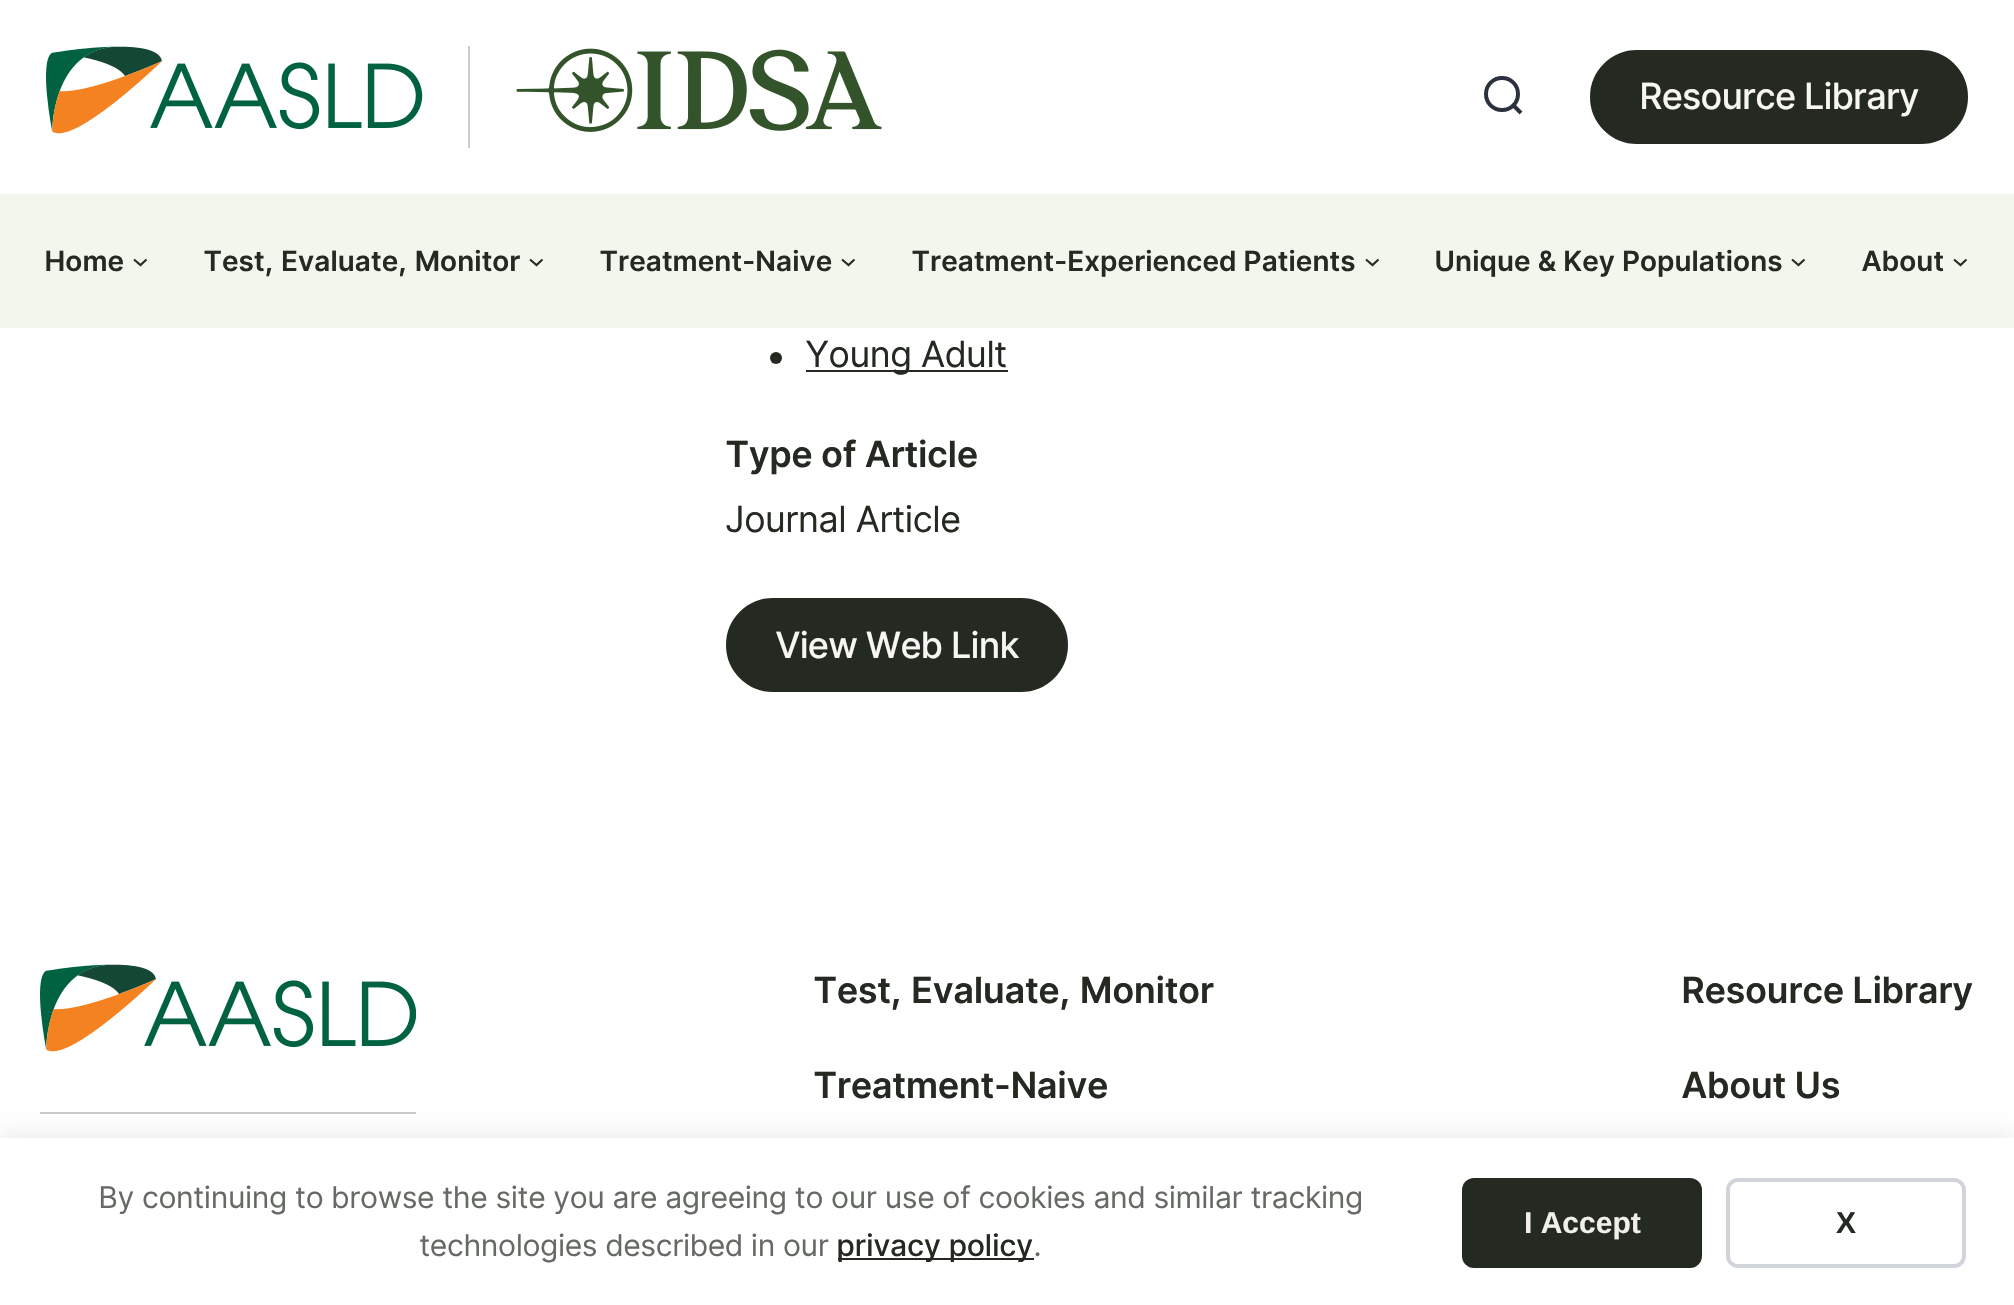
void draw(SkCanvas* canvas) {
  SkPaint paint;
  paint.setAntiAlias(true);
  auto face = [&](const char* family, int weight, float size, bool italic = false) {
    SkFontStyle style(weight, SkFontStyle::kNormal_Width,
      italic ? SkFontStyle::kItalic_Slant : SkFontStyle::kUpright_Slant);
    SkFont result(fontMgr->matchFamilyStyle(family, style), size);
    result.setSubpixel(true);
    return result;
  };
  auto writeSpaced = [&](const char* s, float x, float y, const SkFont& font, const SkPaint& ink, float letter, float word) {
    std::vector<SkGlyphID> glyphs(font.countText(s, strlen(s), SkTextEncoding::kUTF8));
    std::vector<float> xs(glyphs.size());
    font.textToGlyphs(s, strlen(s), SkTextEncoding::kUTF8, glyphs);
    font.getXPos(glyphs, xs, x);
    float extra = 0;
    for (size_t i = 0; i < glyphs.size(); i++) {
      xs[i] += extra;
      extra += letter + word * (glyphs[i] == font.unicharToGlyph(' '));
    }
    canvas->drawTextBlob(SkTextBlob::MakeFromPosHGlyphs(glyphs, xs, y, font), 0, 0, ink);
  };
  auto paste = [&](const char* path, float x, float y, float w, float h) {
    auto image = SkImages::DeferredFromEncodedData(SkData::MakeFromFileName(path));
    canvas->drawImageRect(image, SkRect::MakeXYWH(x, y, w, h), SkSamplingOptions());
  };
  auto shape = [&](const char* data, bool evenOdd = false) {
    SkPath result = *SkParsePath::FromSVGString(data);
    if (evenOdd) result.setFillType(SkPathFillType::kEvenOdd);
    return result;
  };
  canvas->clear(0xffffffff);
  paint.setColor(0xffcccccc);
  canvas->drawRect(SkRect::MakeXYWH(468, 46, 2, 102), paint);
  paste("img/1.png", 46, 46, 377, 88);
  paste("img/2.png", 516, 48, 366, 84);
  paint.setStroke(true);
  paint.setStrokeWidth(4);
  paint.setStrokeCap(SkPaint::kRound_Cap);
  paint.setStrokeJoin(SkPaint::kRound_Join);
  paint.setColor(0xff2b313f);
  canvas->drawPath(shape("M1502 110C1511 110 1518 103 1518 94C1518 85 1511 78 1502 78C1493 78 1486 85 1486 94C1486 103 1493 110 1502 110Z"), paint);
  canvas->save();
  canvas->clipPath(shape("M1504 72C1517.5 72 1528 82.5 1528 96C1528 109.5 1517.5 120 1504 120C1490.5 120 1480 109.5 1480 96C1480 82.5 1490.5 72 1504 72Z"), true);
  canvas->drawPath(shape("M1522 114L1513.5 105.5"), paint);
  canvas->restore();
  paint.setStroke(false);
  paint.setColor(0xff242a22);
  canvas->drawRoundRect(SkRect::MakeXYWH(1591, 51, 376, 92), 46, 46, paint);
  paint.setStroke(true);
  paint.setStrokeWidth(2);
  paint.setStrokeCap(SkPaint::kButt_Cap);
  paint.setStrokeJoin(SkPaint::kMiter_Join);
  canvas->drawRoundRect(SkRect::MakeXYWH(1591, 51, 376, 92), 46, 46, paint);
  paint.setStroke(false);
  paint.setColor(0xfff2f7ee);
  canvas->drawRect(SkRect::MakeXYWH(0, 194, 2014, 134), paint);
  paint.setStroke(true);
  paint.setStrokeWidth(2.1f);
  paint.setColor(0xff242a22);
  canvas->drawPath(shape("M134 259.5L140.5 265L146.5 259.5"), paint);
  canvas->drawPath(shape("M530 259.5L536.5 265L542.5 259.5"), paint);
  canvas->drawPath(shape("M842 259.5L848.5 265L854.5 259.5"), paint);
  canvas->drawPath(shape("M1366 259.5L1372.5 265L1378.5 259.5"), paint);
  canvas->drawPath(shape("M1792 259.5L1798.5 265L1804.5 259.5"), paint);
  canvas->drawPath(shape("M1954 259.5L1960.5 265L1966.5 259.5"), paint);
  paint.setStroke(false);
  canvas->drawCircle(776, 358, 6, paint);
  canvas->drawRect(SkRect::MakeXYWH(806, 370, 202, 2), paint);
  canvas->drawRoundRect(SkRect::MakeXYWH(727, 599, 340, 92), 46, 46, paint);
  paint.setStroke(true);
  paint.setStrokeWidth(2);
  canvas->drawRoundRect(SkRect::MakeXYWH(727, 599, 340, 92), 46, 46, paint);
  paste("img/3.png", 40, 964, 376, 88);
  paint.setStroke(false);
  paint.setColor(0xffcccccc);
  canvas->drawRect(SkRect::MakeXYWH(40, 1112, 376, 2), paint);
  paint.setColor(0x14000000);
  paint.setMaskFilter(SkMaskFilter::MakeBlur(kNormal_SkBlurStyle, 10));
  canvas->drawRect(SkRect::MakeXYWH(0, 1134, 2014, 168), paint);
  paint.setMaskFilter(nullptr);
  paint.setColor(0xffffffff);
  canvas->drawRect(SkRect::MakeXYWH(0, 1138, 2014, 167), paint);
  paint.setColor(0xff242a22);
  canvas->drawRect(SkRect::MakeXYWH(838, 1258, 196, 2), paint);
  canvas->drawRoundRect(SkRect::MakeXYWH(1462, 1178, 240, 90), 12, 12, paint);
  paint.setStroke(true);
  paint.setStrokeWidth(4);
  paint.setColor(0xffd1d5db);
  canvas->drawRoundRect(SkRect::MakeXYWH(1728, 1180, 236, 86), 10, 10, paint);
  auto f0 = face("Inter Tight", 500, 36);
  paint.setStroke(false);
  paint.setColor(0xfff7f6f3);
  writeSpaced("Resource Library", 1640, 109, f0, paint, 0.75f, 0);
  auto f1 = face("Inter Tight", 600, 28);
  paint.setColor(0xff242a22);
  {
    const struct { const char* s; float x, y; } items[] = {
      {"Home", 45, 271},
      {"Test, Evaluate, Monitor", 204, 271},
      {"Treatment-Naive", 600, 271},
      {"Treatment-Experienced Patients", 912, 271},
      {"Unique & Key Populations", 1435, 271},
      {"About", 1862, 271},
    };
    for (auto [s, x, y] : items) {
      writeSpaced(s, x, y, f1, paint, 1.08f, 0);
    }
  }
  auto f2 = face("Inter Tight", 400, 36);
  writeSpaced("Young Adult", 806, 367, f2, paint, 1.08f, 0);
  auto f3 = face("Inter Tight", 600, 36);
  writeSpaced("Type of Article", 726, 467, f3, paint, 1.08f, 0);
  writeSpaced("Journal Article", 726, 532, f2, paint, 1.08f, 0);
  paint.setColor(0xfff7f6f3);
  writeSpaced("View Web Link", 776, 658, f0, paint, 0.75f, 0);
  paint.setColor(0xff242a22);
  {
    const struct { const char* s; float x, y; } items[] = {
      {"Test, Evaluate, Monitor", 814, 1003},
      {"Treatment-Naive", 814, 1098},
      {"Resource Library", 1682, 1003},
      {"About Us", 1682, 1098},
    };
    for (auto [s, x, y] : items) {
      writeSpaced(s, x, y, f3, paint, 1.08f, 0);
    }
  }
  auto f4 = face("Inter Tight", 400, 30);
  paint.setColor(0xff666a64);
  writeSpaced("By continuing to browse the site you are agreeing to our use of cookies and similar tracking", 99, 1208, f4, paint, 1.08f, 0);
  writeSpaced("technologies described in our", 420, 1256, f4, paint, 1.08f, 0);
  auto f5 = face("Inter Tight", 500, 30);
  paint.setColor(0xff242a22);
  writeSpaced("privacy policy", 837, 1256, f5, paint, 1.08f, 0);
  paint.setColor(0xff666a64);
  writeSpaced(".", 1034, 1256, f4, paint, 1.08f, 0);
  auto f6 = face("Liberation Sans", 700, 30);
  paint.setColor(0xfff0efe9);
  canvas->drawString("I Accept", 1524, 1233, f6, paint);
  paint.setColor(0xff242a22);
  canvas->drawString("X", 1836, 1233, f6, paint);
}
